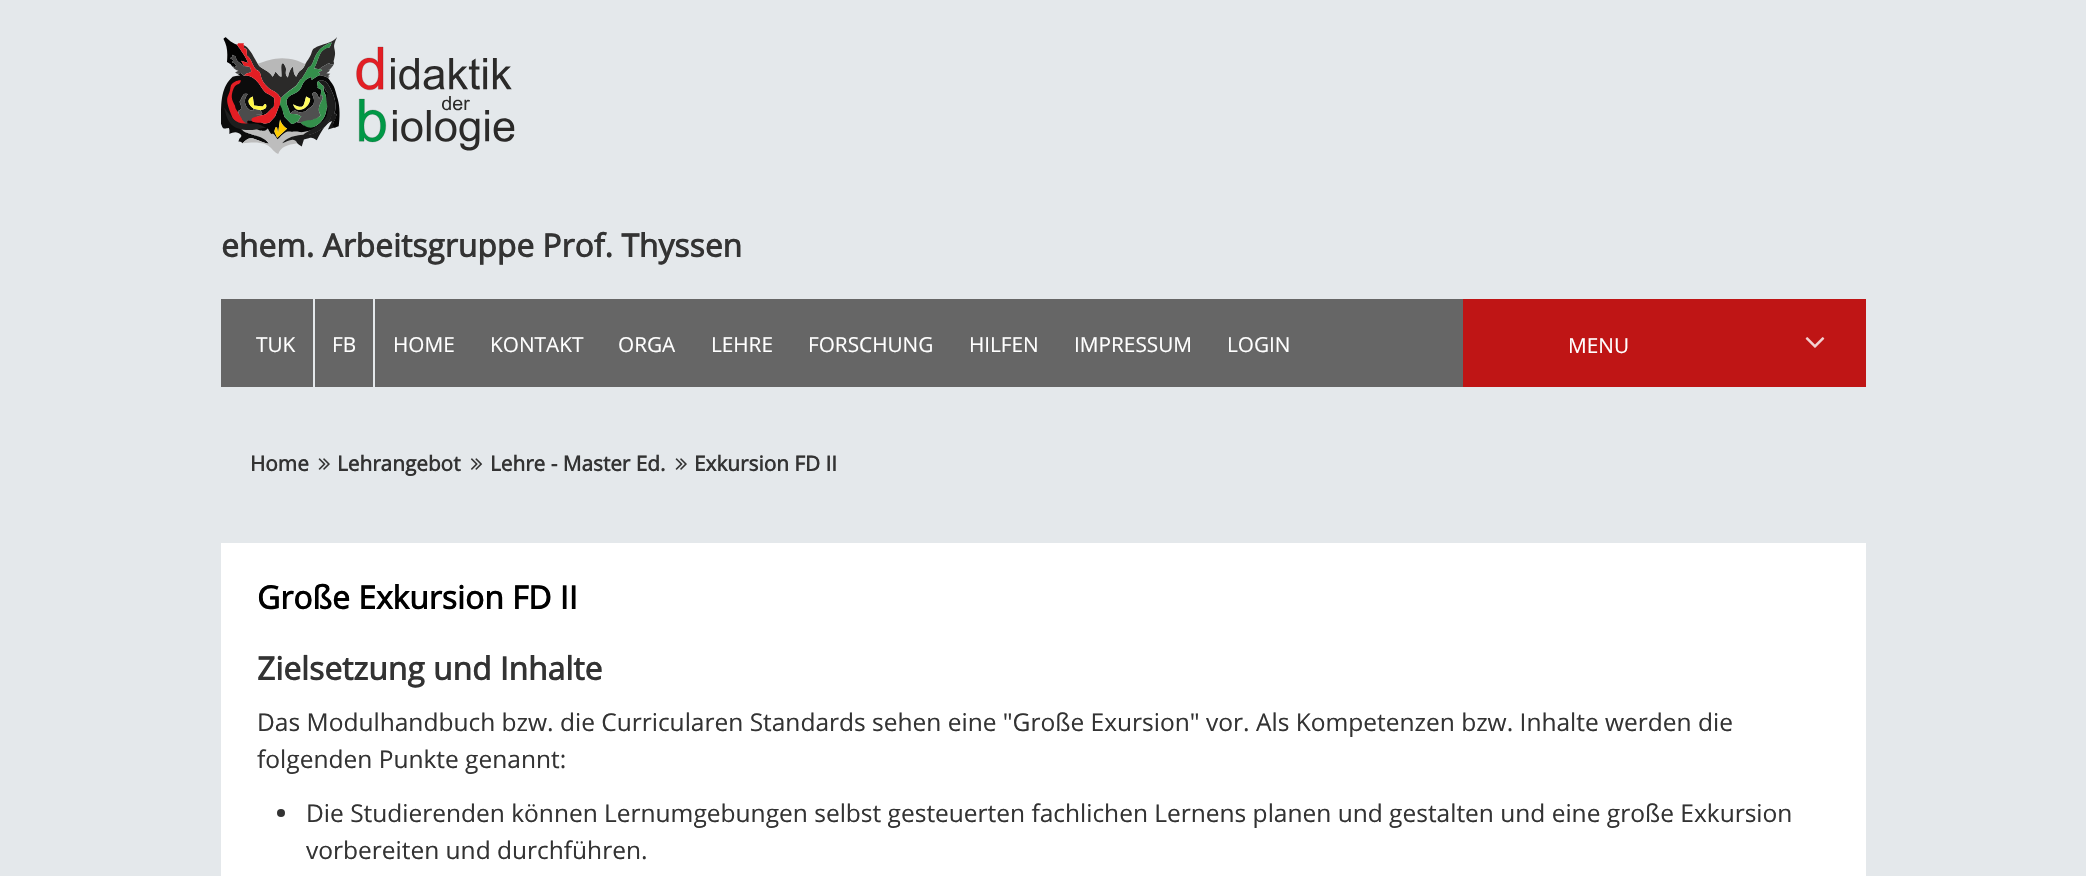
void draw(SkCanvas* canvas) {
  SkPaint paint;
  paint.setAntiAlias(true);
  auto face = [&](const char* family, int weight, float size, bool italic = false) {
    SkFontStyle style(weight, SkFontStyle::kNormal_Width,
      italic ? SkFontStyle::kItalic_Slant : SkFontStyle::kUpright_Slant);
    SkFont result(fontMgr->matchFamilyStyle(family, style), size);
    result.setSubpixel(true);
    return result;
  };
  auto paste = [&](const char* path, float x, float y, float w, float h) {
    auto image = SkImages::DeferredFromEncodedData(SkData::MakeFromFileName(path));
    canvas->drawImageRect(image, SkRect::MakeXYWH(x, y, w, h), SkSamplingOptions());
  };
  canvas->clear(0xffe4e8eb);
  paste("img/1.png", 221, 37, 294, 117);
  {
    const struct { float x, y, w, h; SkColor color; } items[] = {
      {221, 299, 1242, 88, 0xff666666},
      {313, 299, 2, 88, 0xffe4e8eb},
      {373, 299, 2, 88, 0xffe4e8eb},
      {1463, 299, 403, 88, 0xffbf1515},
    };
    for (auto [x, y, w, h, color] : items) {
      paint.setColor(color);
      canvas->drawRect(SkRect::MakeXYWH(x, y, w, h), paint);
    }
  }
  paste("img/2.png", 1805, 337, 20, 11);
  paste("img/3.png", 318, 458, 12, 12);
  paste("img/4.png", 470, 458, 13, 12);
  paste("img/3.png", 675, 458, 12, 12);
  paint.setColor(0xffffffff);
  canvas->drawRect(SkRect::MakeXYWH(221, 543, 1645, 333), paint);
  paint.setColor(0xff333333);
  canvas->drawCircle(281, 813, 4, paint);
  auto f0 = face("Open Sans", 700, 31.8f);
  canvas->drawString("ehem. Arbeitsgruppe Prof. Thyssen", 221, 257, f0, paint);
  auto f1 = face("Open Sans", 400, 20.75f);
  paint.setColor(0xffffffff);
  {
    const struct { const char* s; float x, y; } items[] = {
      {"TUK", 256, 352},
      {"FB", 332, 352},
      {"HOME", 393, 352},
      {"KONTAKT", 490, 352},
      {"ORGA", 618, 352},
      {"LEHRE", 711, 352},
      {"FORSCHUNG", 808, 352},
      {"HILFEN", 969, 352},
      {"IMPRESSUM", 1074, 352},
      {"LOGIN", 1227, 352},
      {"MENU", 1568, 353},
    };
    for (auto [s, x, y] : items) {
      canvas->drawString(s, x, y, f1, paint);
    }
  }
  auto f2 = face("Open Sans", 700, 20.75f);
  paint.setColor(0xff333333);
  {
    const struct { const char* s; float x, y; } items[] = {
      {"Home", 250, 471},
      {"Lehrangebot", 337, 471},
      {"Lehre - Master Ed.", 490, 471},
      {"Exkursion FD II", 694, 471},
    };
    for (auto [s, x, y] : items) {
      canvas->drawString(s, x, y, f2, paint);
    }
  }
  paint.setColor(0xff000000);
  canvas->drawString("Große Exkursion FD II", 257, 609, f0, paint);
  paint.setColor(0xff333333);
  canvas->drawString("Zielsetzung und Inhalte", 257, 680, f0, paint);
  auto f3 = face("Open Sans", 400, 24.5f);
  {
    const struct { const char* s; float x, y; } items[] = {
      {"Das Modulhandbuch bzw. die Curricularen Standards sehen eine \"Große Exursion\" vor. Als Kompetenzen bzw. Inhalte werden die", 257, 731},
      {"folgenden Punkte genannt:", 257, 768},
      {"Die Studierenden können Lernumgebungen selbst gesteuerten fachlichen Lernens planen und gestalten und eine große Exkursion", 306, 822},
      {"vorbereiten und durchführen.", 306, 859},
    };
    for (auto [s, x, y] : items) {
      canvas->drawString(s, x, y, f3, paint);
    }
  }
}
